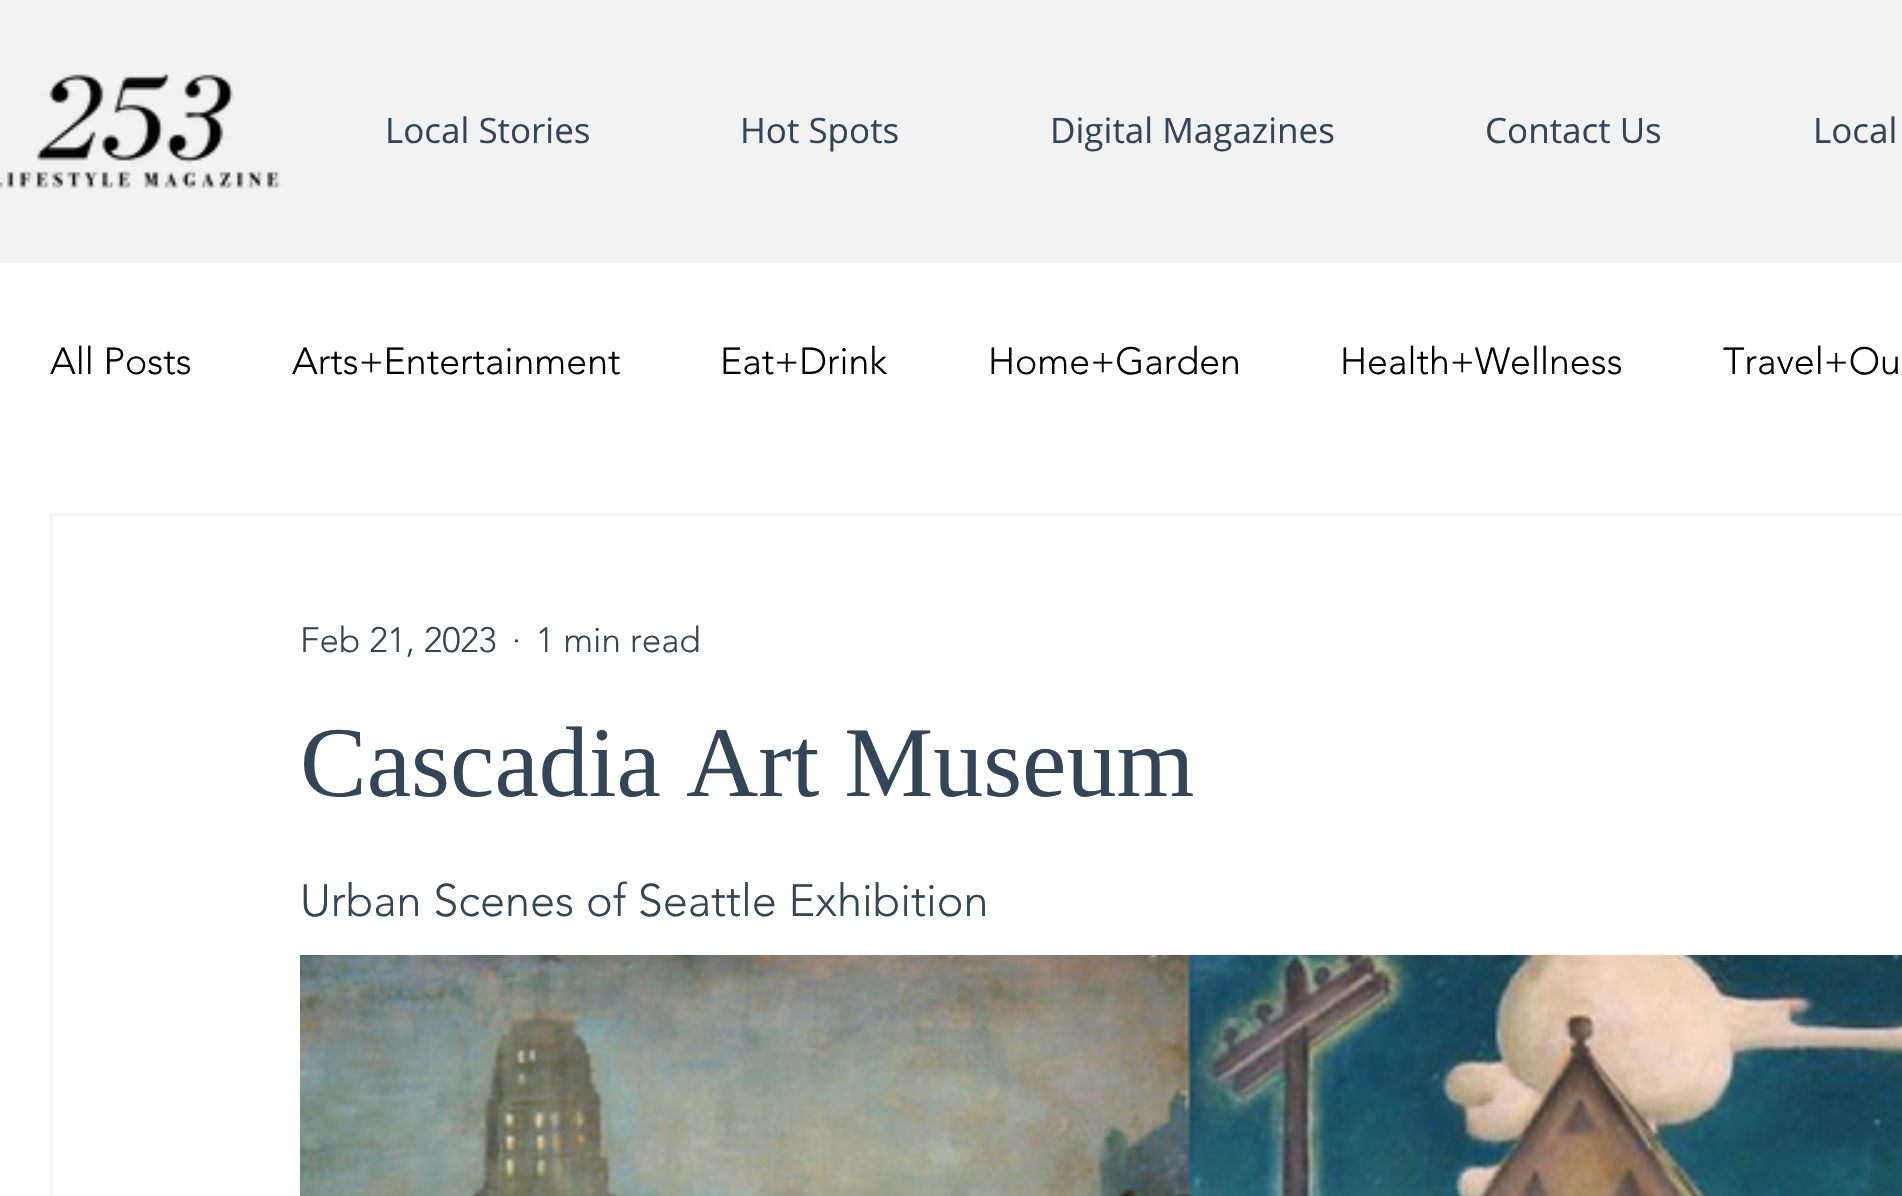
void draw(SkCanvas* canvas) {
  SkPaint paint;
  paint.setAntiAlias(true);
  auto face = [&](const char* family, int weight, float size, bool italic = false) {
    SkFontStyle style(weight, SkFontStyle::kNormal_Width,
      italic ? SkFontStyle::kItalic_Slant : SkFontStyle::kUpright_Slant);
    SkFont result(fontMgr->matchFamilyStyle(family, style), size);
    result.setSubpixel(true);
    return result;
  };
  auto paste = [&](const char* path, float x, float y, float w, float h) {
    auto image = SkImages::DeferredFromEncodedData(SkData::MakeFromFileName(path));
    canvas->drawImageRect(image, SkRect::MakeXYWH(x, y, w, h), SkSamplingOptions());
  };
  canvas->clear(0xffffffff);
  paint.setColor(0xfff2f2f2);
  canvas->drawRect(SkRect::MakeXYWH(0, 0, 1902, 263), paint);
  paste("img/1.png", 0, 72, 281, 117);
  paint.setStroke(true);
  paint.setStrokeWidth(3);
  paint.setColor(0xfff5f5f5);
  canvas->drawRect(SkRect::MakeXYWH(51.5f, 514.5f, 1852, 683), paint);
  paste("img/2.png", 300, 955, 1602, 241);
  auto f0 = face("Open Sans", 400, 35);
  paint.setStroke(false);
  paint.setColor(0xff344557);
  {
    const struct { const char* s; float x, y; } items[] = {
      {"Local Stories", 385, 143},
      {"Hot Spots", 740, 143},
      {"Digital Magazines", 1050, 143},
      {"Contact Us", 1485, 143},
      {"Local", 1813, 143},
    };
    for (auto [s, x, y] : items) {
      canvas->drawString(s, x, y, f0, paint);
    }
  }
  auto f1 = face("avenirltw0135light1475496", 300, 37.5f);
  paint.setColor(0xff000000);
  {
    const struct { const char* s; float x, y; } items[] = {
      {"All Posts", 50, 374},
      {"Arts+Entertainment", 292, 374},
      {"Eat+Drink", 720, 374},
      {"Home+Garden", 988, 374},
      {"Health+Wellness", 1340, 374},
      {"Travel+Ou", 1723, 374},
    };
    for (auto [s, x, y] : items) {
      canvas->drawString(s, x, y, f1, paint);
    }
  }
  auto f2 = face("avenirltw0135light1475496", 300, 35);
  paint.setColor(0xff344557);
  {
    const struct { const char* s; float x, y; } items[] = {
      {"Feb 21, 2023", 300, 652},
      {"·", 512, 652},
      {"1 min read", 536, 652},
    };
    for (auto [s, x, y] : items) {
      canvas->drawString(s, x, y, f2, paint);
    }
  }
  auto f3 = face("Liberation Serif", 400, 100);
  canvas->drawString("Cascadia Art Museum", 300, 796, f3, paint);
  auto f4 = face("avenirltw0135light1475496", 300, 45);
  canvas->drawString("Urban Scenes of Seattle Exhibition", 300, 916, f4, paint);
}
